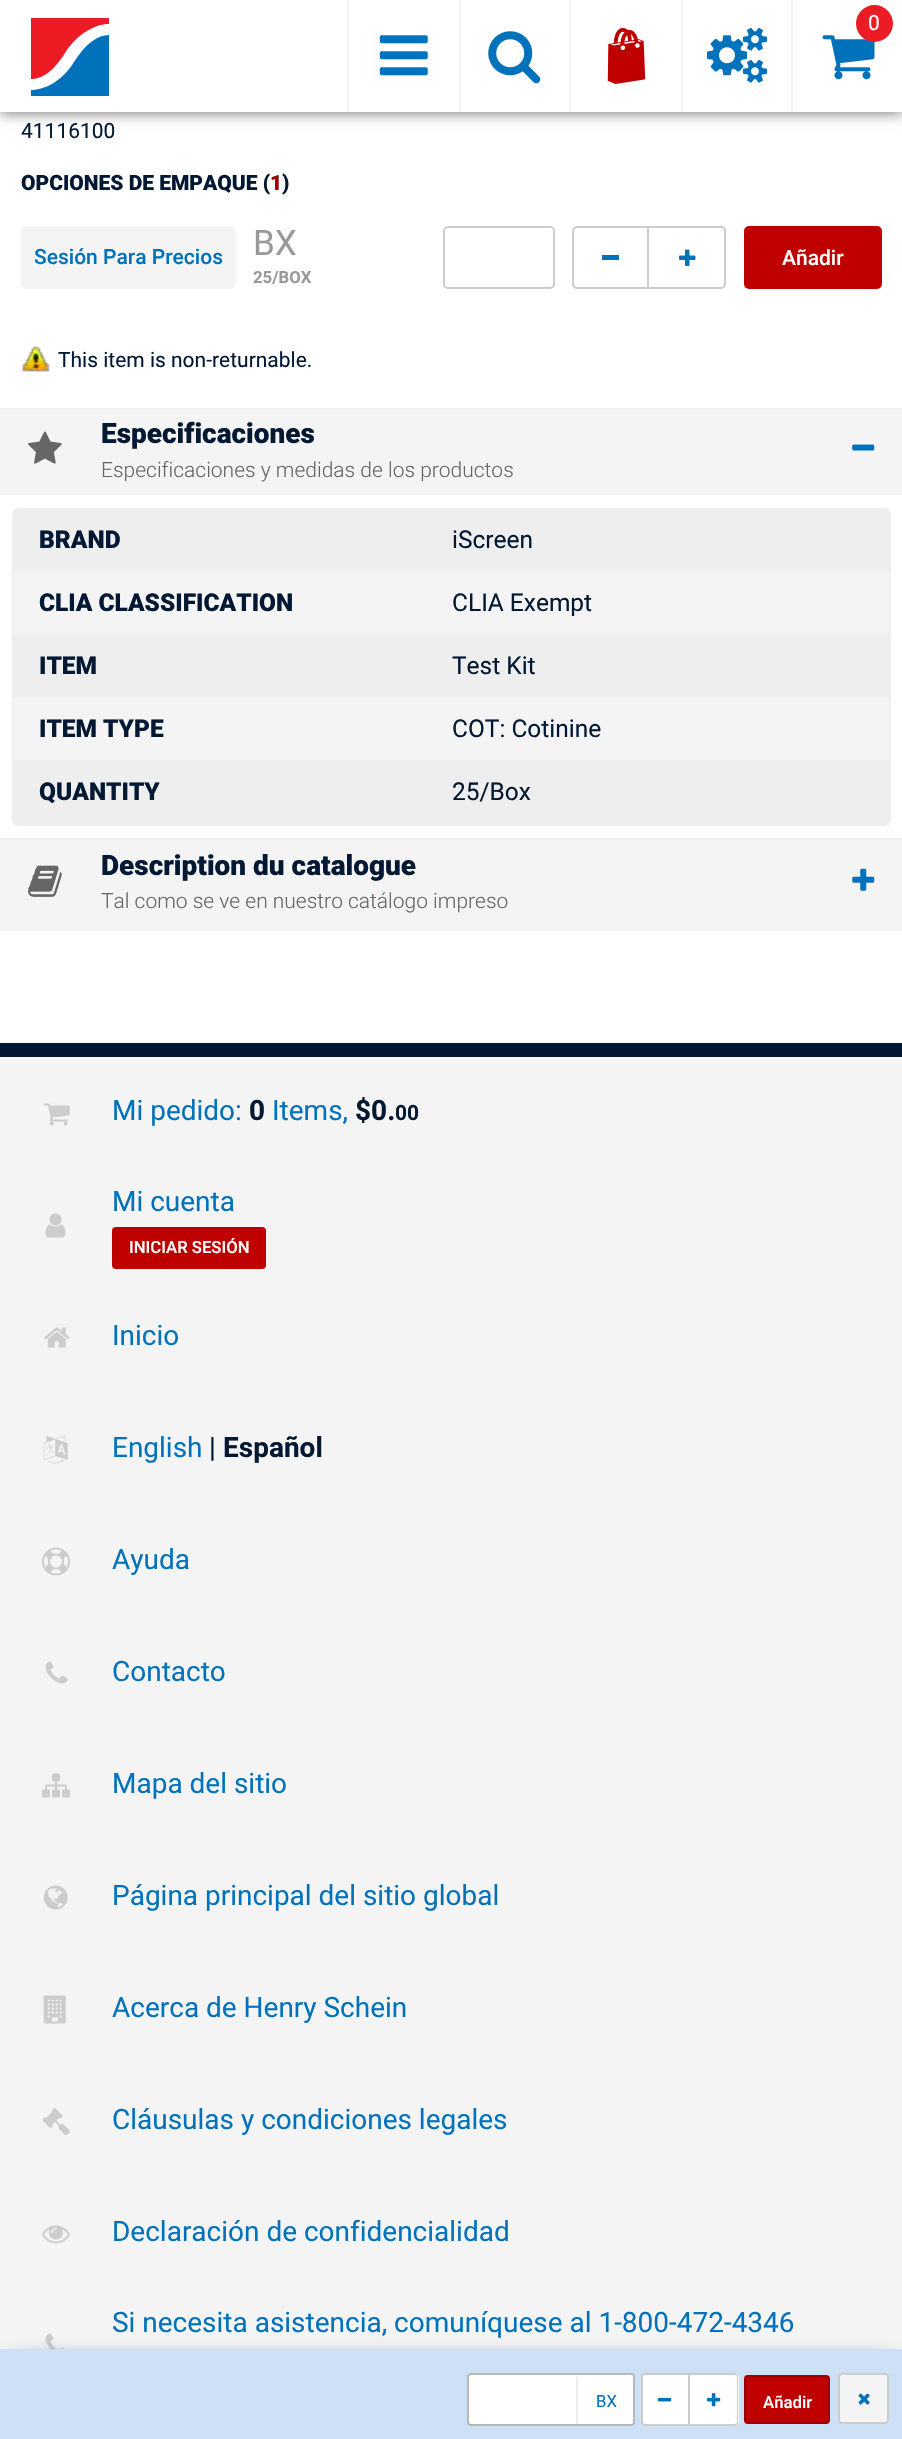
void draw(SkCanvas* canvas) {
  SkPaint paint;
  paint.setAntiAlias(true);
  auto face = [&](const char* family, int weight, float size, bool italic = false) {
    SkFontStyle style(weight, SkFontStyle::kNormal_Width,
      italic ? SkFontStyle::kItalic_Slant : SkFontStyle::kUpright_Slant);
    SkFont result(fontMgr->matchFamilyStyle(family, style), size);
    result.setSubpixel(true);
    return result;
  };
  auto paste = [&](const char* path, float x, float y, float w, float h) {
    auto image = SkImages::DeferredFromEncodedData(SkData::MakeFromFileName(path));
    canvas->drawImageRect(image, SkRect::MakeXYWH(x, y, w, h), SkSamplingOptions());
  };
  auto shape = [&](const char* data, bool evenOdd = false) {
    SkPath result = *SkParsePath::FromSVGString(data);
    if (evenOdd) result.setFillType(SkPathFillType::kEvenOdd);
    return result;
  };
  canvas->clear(0xfff4f4f4);
  paint.setColor(0xffffffff);
  canvas->drawRect(SkRect::MakeXYWH(0, 112, 902, 931), paint);
  paint.setColor(0xff666666);
  paint.setMaskFilter(SkMaskFilter::MakeBlur(kNormal_SkBlurStyle, 7));
  canvas->drawRect(SkRect::MakeXYWH(0, 0, 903, 112), paint);
  paint.setMaskFilter(nullptr);
  paint.setColor(0xffffffff);
  canvas->drawRect(SkRect::MakeXYWH(0, 0, 902, 112), paint);
  paint.setColor(0xffed1c24);
  canvas->drawPath(shape("M109 24V18H31V79C42 79 53 72 65 53C77 34 95 24 109 24Z", true), paint);
  paint.setColor(0xff0072bc);
  canvas->drawPath(shape("M31 90V96H109V35C98 35 86 43 74 62C62 81 45 90 31 90Z", true), paint);
  paint.setColor(0xfff4f4f4);
  canvas->drawRect(SkRect::MakeXYWH(347, 0, 2, 112), paint);
  paste("img/1.png", 379, 35, 49, 41);
  canvas->drawRect(SkRect::MakeXYWH(459, 0, 2, 112), paint);
  paste("img/2.png", 488, 31, 53, 53);
  canvas->drawRect(SkRect::MakeXYWH(569, 0, 2, 112), paint);
  paste("img/3.png", 607, 28, 39, 56);
  canvas->drawRect(SkRect::MakeXYWH(681, 0, 2, 112), paint);
  paste("img/4.png", 707, 27, 60, 56);
  canvas->drawRect(SkRect::MakeXYWH(791, 0, 2, 112), paint);
  paste("img/5.png", 822, 35, 53, 45);
  paint.setColor(0xffed1c24);
  canvas->drawCircle(874.5f, 23.5f, 18.5f, paint);
  paint.setColor(0xfff4f4f4);
  canvas->drawRoundRect(SkRect::MakeXYWH(21, 226, 215, 63), 5, 5, paint);
  paint.setStroke(true);
  paint.setStrokeWidth(2);
  paint.setColor(0xffcccccc);
  canvas->drawRoundRect(SkRect::MakeXYWH(444, 227, 110, 61), 4, 4, paint);
  canvas->drawPath(shape("M577 227H648V288H577C575 288 573 286 573 284V231C573 229 575 227 577 227Z"), paint);
  paint.setStroke(false);
  paint.setColor(0xff0072bc);
  canvas->drawRect(SkRect::MakeXYWH(602, 255, 17, 5), paint);
  paint.setColor(0xffcccccc);
  canvas->drawPath(shape("M649 226H721C724 226 726 228 726 231V284C726 286 724 289 721 289H649ZM649 228H721C723 228 724 229 724 231V284C724 285 723 287 721 287H649Z", true), paint);
  paste("img/6.png", 679, 249, 17, 17);
  paint.setColor(0xffbf0000);
  canvas->drawRoundRect(SkRect::MakeXYWH(744, 226, 138, 63), 5, 5, paint);
  paste("img/7.png", 21, 346, 30, 26);
  paint.setColor(0xfff4f4f4);
  canvas->drawRect(SkRect::MakeXYWH(0, 410, 902, 85), paint);
  paint.setColor(0xffeeeeee);
  canvas->drawRect(SkRect::MakeXYWH(0, 408, 902, 2), paint);
  paste("img/8.png", 28, 431, 34, 33);
  paste("img/9.png", 852, 444, 23, 7);
  paint.setStroke(true);
  canvas->drawRoundRect(SkRect::MakeXYWH(13, 509, 877, 316), 6, 6, paint);
  paint.setStroke(false);
  {
    const struct { float x, y, w, h; SkColor color; } items[] = {
      {14, 509, 875, 63, 0xffeeeeee},
      {14, 572, 875, 62, 0xfff4f4f4},
      {14, 634, 875, 64, 0xffeeeeee},
      {14, 698, 875, 62, 0xfff4f4f4},
      {14, 760, 875, 65, 0xffeeeeee},
      {0, 838, 902, 2, 0xffeeeeee},
      {0, 840, 902, 91, 0xfff4f4f4},
    };
    for (auto [x, y, w, h, color] : items) {
      paint.setColor(color);
      canvas->drawRect(SkRect::MakeXYWH(x, y, w, h), paint);
    }
  }
  paste("img/10.png", 28, 865, 34, 32);
  paste("img/11.png", 852, 868, 23, 23);
  paint.setColor(0xff031933);
  canvas->drawRect(SkRect::MakeXYWH(0, 1043, 902, 14), paint);
  paste("img/12.png", 43, 1103, 27, 23);
  paste("img/13.png", 45, 1213, 21, 25);
  paint.setColor(0xffbf0000);
  canvas->drawRoundRect(SkRect::MakeXYWH(112, 1227, 154, 42), 4, 4, paint);
  paste("img/14.png", 44, 1327, 26, 21);
  paste("img/15.png", 43, 1435, 25, 29);
  paste("img/16.png", 42, 1547, 28, 29);
  paste("img/17.png", 45, 1661, 23, 23);
  paste("img/18.png", 42, 1773, 28, 25);
  paste("img/19.png", 43, 1885, 25, 25);
  paste("img/20.png", 43, 1995, 23, 29);
  paste("img/21.png", 42, 2108, 28, 27);
  paste("img/22.png", 42, 2225, 28, 19);
  paste("img/23.png", 45, 2333, 20, 16);
  paint.setColor(0xff031933);
  paint.setMaskFilter(SkMaskFilter::MakeBlur(kNormal_SkBlurStyle, 10.5f));
  canvas->drawRect(SkRect::MakeXYWH(14, 2363, 875, 63), paint);
  paint.setMaskFilter(nullptr);
  paint.setColor(0xffcee0f5);
  canvas->drawRect(SkRect::MakeXYWH(0, 2349, 902, 90), paint);
  paint.setColor(0xffffffff);
  canvas->drawRoundRect(SkRect::MakeXYWH(468, 2374, 166, 51), 3, 3, paint);
  paint.setStroke(true);
  paint.setColor(0xffb8b8b8);
  canvas->drawRoundRect(SkRect::MakeXYWH(468, 2374, 166, 51), 3, 3, paint);
  paint.setStroke(false);
  paint.setColor(0xffeeeeee);
  canvas->drawRect(SkRect::MakeXYWH(576, 2377, 2, 47), paint);
  paint.setColor(0xffffffff);
  canvas->drawPath(shape("M645 2374H689V2425H645C643.5 2425 642 2423.5 642 2422V2377C642 2375.5 643.5 2374 645 2374Z"), paint);
  paint.setStroke(true);
  paint.setColor(0xffcccccc);
  canvas->drawPath(shape("M645 2374H689V2425H645C643.5 2425 642 2423.5 642 2422V2377C642 2375.5 643.5 2374 645 2374Z"), paint);
  paste("img/24.png", 658, 2397, 14, 5);
  paint.setStroke(false);
  paint.setColor(0xffffffff);
  canvas->drawPath(shape("M690 2373H735C737 2373 739 2375 739 2377V2422C739 2424 737 2426 735 2426H690Z"), paint);
  paint.setColor(0xffcccccc);
  canvas->drawPath(shape("M690 2373H734C737 2373 738 2375 738 2377V2421C738 2424 737 2426 734 2426H690ZM690 2375H734C736 2375 737 2376 737 2377V2421C737 2423 736 2424 734 2424H690Z", true), paint);
  paste("img/25.png", 707, 2393, 14, 14);
  paint.setColor(0xffbf0000);
  canvas->drawRoundRect(SkRect::MakeXYWH(745, 2376, 84, 47), 3, 3, paint);
  paint.setStroke(true);
  paint.setColor(0xff990000);
  canvas->drawRoundRect(SkRect::MakeXYWH(745, 2376, 84, 47), 3, 3, paint);
  paint.setStroke(false);
  paint.setColor(0xfff4f4f4);
  canvas->drawRoundRect(SkRect::MakeXYWH(839, 2374, 49, 49), 3, 3, paint);
  paint.setStroke(true);
  paint.setColor(0xffcccccc);
  canvas->drawRoundRect(SkRect::MakeXYWH(839, 2374, 49, 49), 3, 3, paint);
  paste("img/26.png", 858, 2393, 12, 12);
  auto f0 = face("Roboto", 400, 21);
  paint.setStroke(false);
  paint.setColor(0xffffffff);
  canvas->drawString("0", 868, 30, f0, paint);
  paint.setColor(0xff031933);
  canvas->drawString("41116100", 21, 138, f0, paint);
  auto f1 = face("Roboto", 900, 21);
  canvas->drawString("OPCIONES DE EMPAQUE (", 21, 190, f1, paint);
  paint.setColor(0xff990000);
  canvas->drawString("1", 270, 190, f1, paint);
  paint.setColor(0xff031933);
  canvas->drawString(")", 282, 190, f1, paint);
  auto f2 = face("Roboto", 500, 21);
  paint.setColor(0xff0072bc);
  canvas->drawString("Sesión Para Precios", 34, 264, f2, paint);
  auto f3 = face("Roboto", 400, 35);
  paint.setColor(0xff999999);
  canvas->drawString("BX", 253, 255, f3, paint);
  auto f4 = face("Roboto", 700, 16.75f);
  canvas->drawString("25/BOX", 253, 283, f4, paint);
  paint.setColor(0xffffffff);
  canvas->drawString("Añadir", 782, 265, f2, paint);
  paint.setColor(0xff031933);
  canvas->drawString("This item is non-returnable.", 58, 367, f0, paint);
  auto f5 = face("Roboto", 900, 28);
  canvas->drawString("Especificaciones", 101, 443, f5, paint);
  auto f6 = face("Roboto", 300, 21);
  paint.setColor(0xff666666);
  canvas->drawString("Especificaciones y medidas de los productos", 101, 477, f6, paint);
  auto f7 = face("Roboto", 900, 24.5f);
  paint.setColor(0xff031933);
  canvas->drawString("BRAND", 39, 548, f7, paint);
  auto f8 = face("Roboto", 400, 24.5f);
  canvas->drawString("iScreen", 452, 548, f8, paint);
  canvas->drawString("CLIA CLASSIFICATION", 39, 611, f7, paint);
  canvas->drawString("CLIA Exempt", 452, 611, f8, paint);
  canvas->drawString("ITEM", 39, 674, f7, paint);
  canvas->drawString("Test Kit", 452, 674, f8, paint);
  canvas->drawString("ITEM TYPE", 39, 737, f7, paint);
  canvas->drawString("COT: Cotinine", 452, 737, f8, paint);
  canvas->drawString("QUANTITY", 39, 800, f7, paint);
  canvas->drawString("25/Box", 452, 800, f8, paint);
  canvas->drawString("Description du catalogue", 101, 875, f5, paint);
  paint.setColor(0xff666666);
  canvas->drawString("Tal como se ve en nuestro catálogo impreso", 101, 908, f6, paint);
  auto f9 = face("Roboto", 400, 28);
  paint.setColor(0xff0072bc);
  canvas->drawString("Mi pedido:", 112, 1120, f9, paint);
  auto f10 = face("Roboto", 700, 28);
  paint.setColor(0xff031933);
  canvas->drawString("0", 249, 1120, f10, paint);
  paint.setColor(0xff0072bc);
  canvas->drawString("Items,", 272, 1120, f9, paint);
  paint.setColor(0xff031933);
  canvas->drawString("$0.", 355, 1120, f10, paint);
  auto f11 = face("Roboto", 700, 21);
  canvas->drawString("00", 395, 1120, f11, paint);
  paint.setColor(0xff0072bc);
  canvas->drawString("Mi cuenta", 112, 1211, f9, paint);
  auto f12 = face("Roboto", 500, 16.75f);
  paint.setColor(0xffffffff);
  canvas->drawString("INICIAR SESIÓN", 129, 1253, f12, paint);
  paint.setColor(0xff0072bc);
  canvas->drawString("Inicio", 112, 1345, f9, paint);
  canvas->drawString("English", 112, 1457, f9, paint);
  paint.setColor(0xff031933);
  canvas->drawString("|", 209, 1457, f9, paint);
  canvas->drawString("Español", 223, 1457, f10, paint);
  paint.setColor(0xff0072bc);
  {
    const struct { const char* s; float x, y; } items[] = {
      {"Ayuda", 112, 1569},
      {"Contacto", 112, 1681},
      {"Mapa del sitio", 112, 1793},
      {"Página principal del sitio global", 112, 1905},
      {"Acerca de Henry Schein", 112, 2017},
      {"Cláusulas y condiciones legales", 112, 2129},
      {"Declaración de confidencialidad", 112, 2241},
      {"Si necesita asistencia, comuníquese al 1-800-472-4346", 112, 2332},
    };
    for (auto [s, x, y] : items) {
      canvas->drawString(s, x, y, f9, paint);
    }
  }
  auto f13 = face("Roboto", 400, 16.75f);
  canvas->drawString("BX", 596, 2407, f13, paint);
  paint.setColor(0xffffffff);
  canvas->drawString("Añadir", 763, 2408, f12, paint);
}
